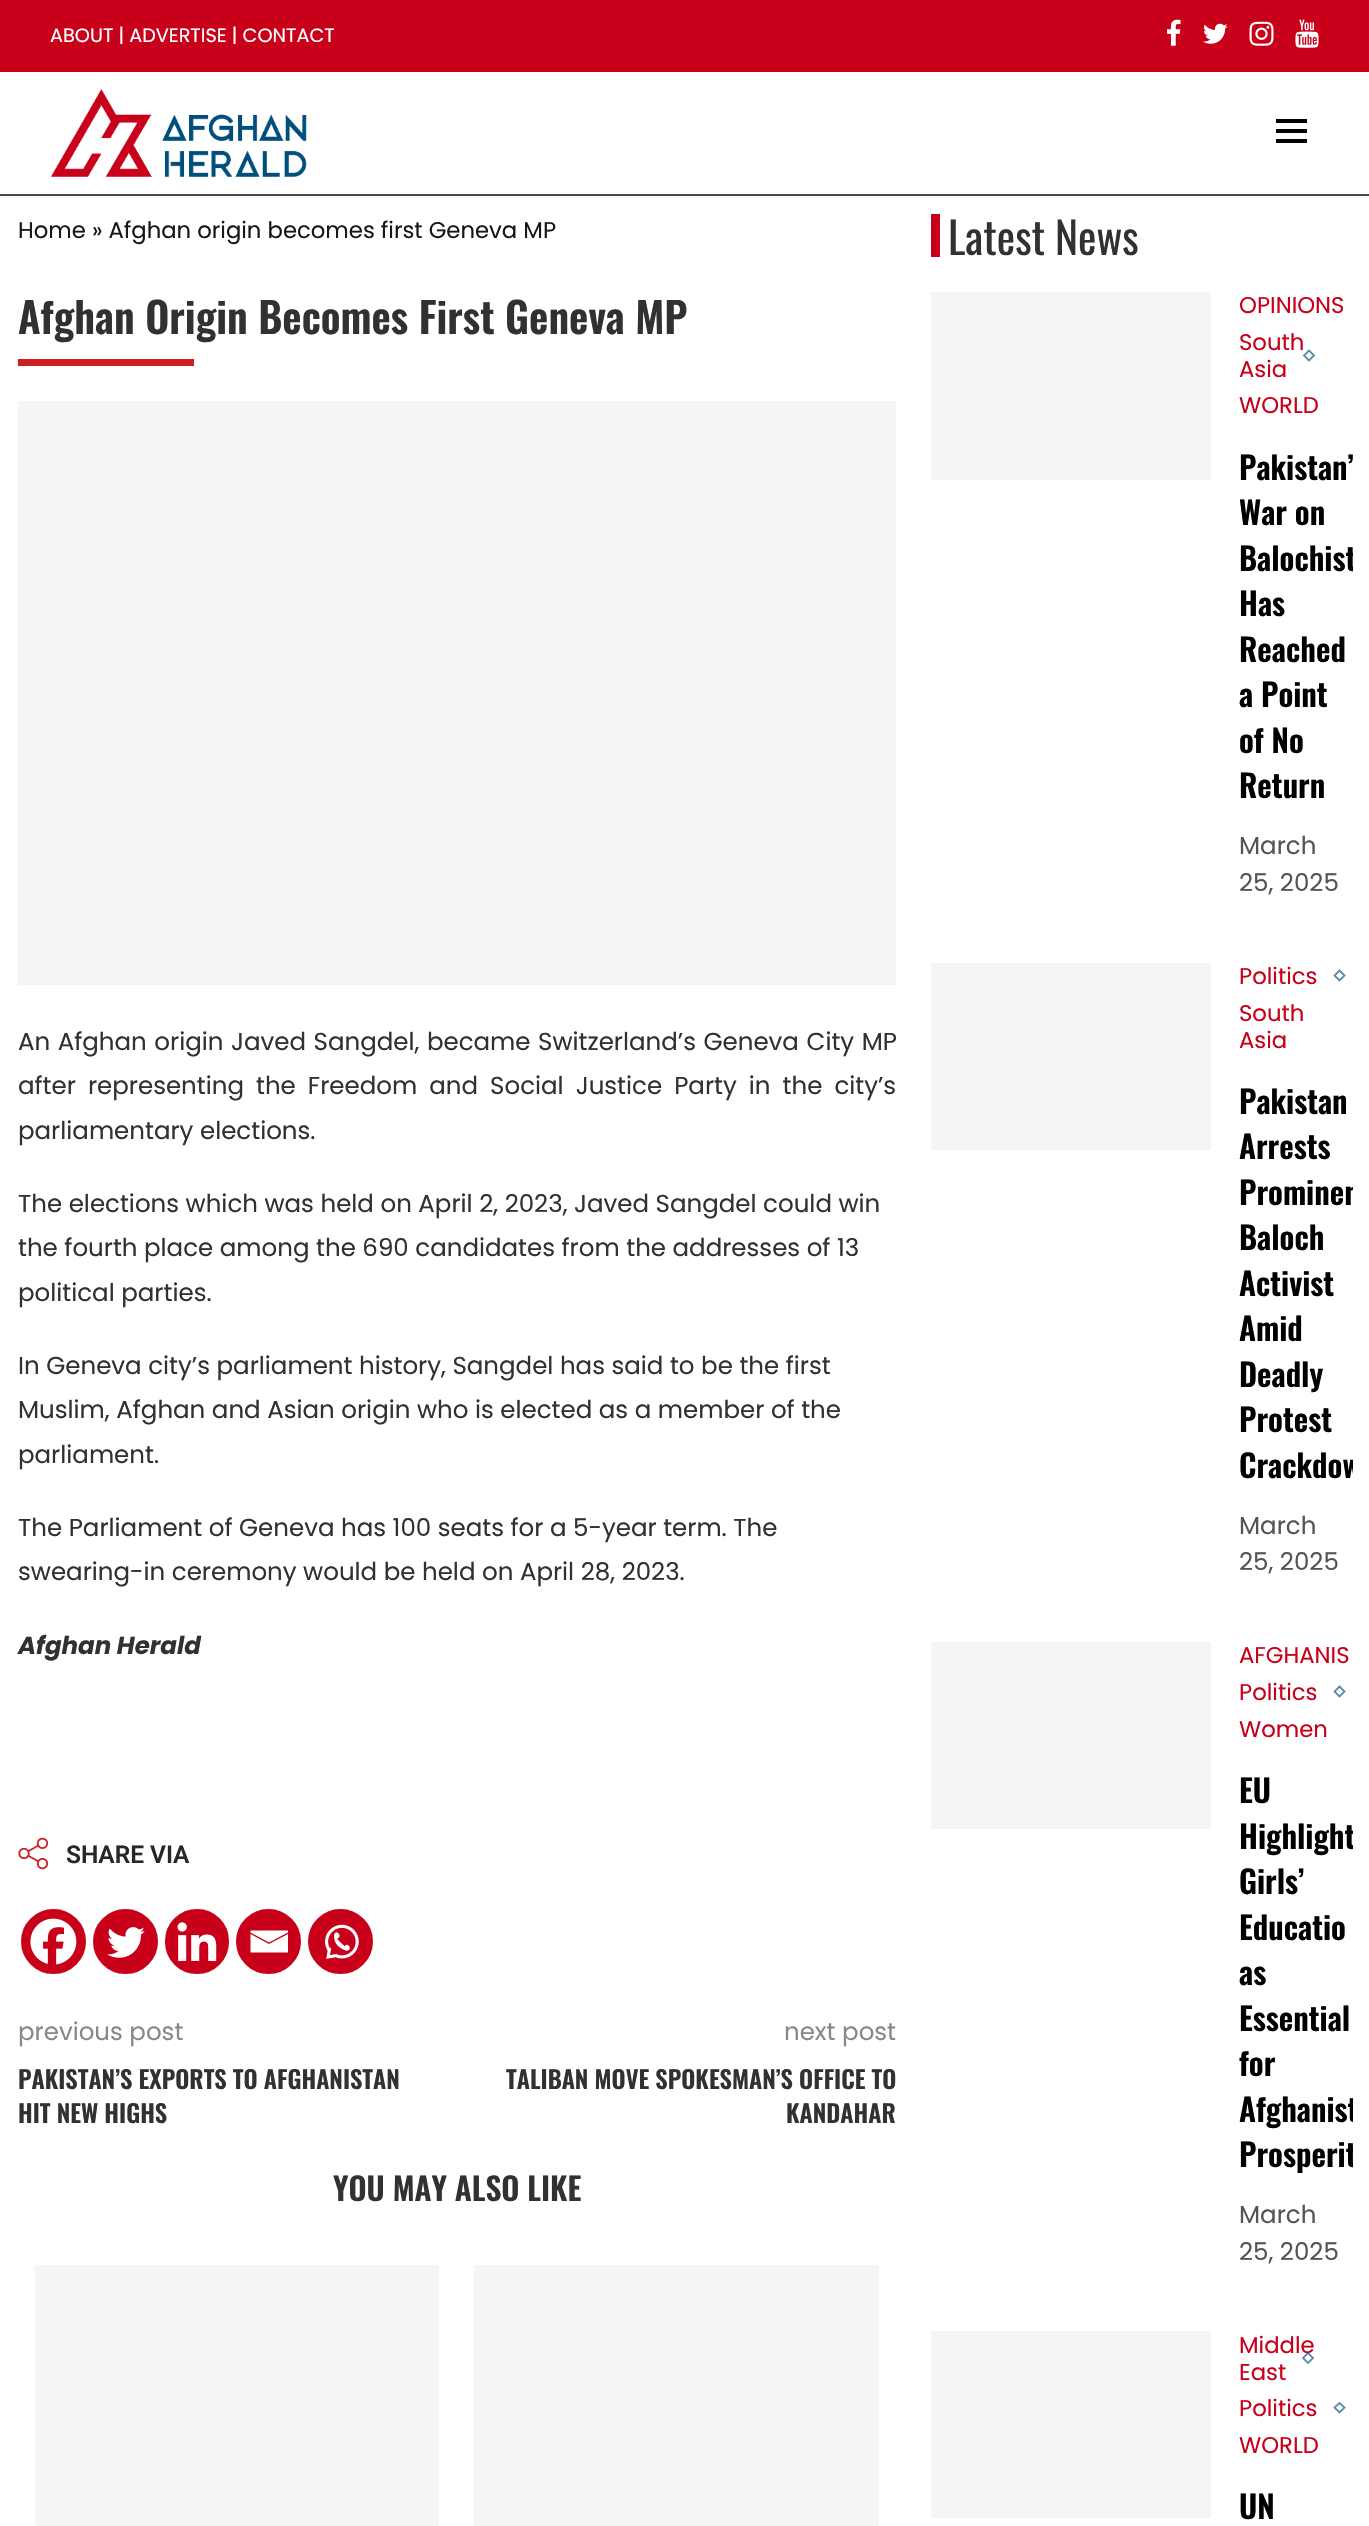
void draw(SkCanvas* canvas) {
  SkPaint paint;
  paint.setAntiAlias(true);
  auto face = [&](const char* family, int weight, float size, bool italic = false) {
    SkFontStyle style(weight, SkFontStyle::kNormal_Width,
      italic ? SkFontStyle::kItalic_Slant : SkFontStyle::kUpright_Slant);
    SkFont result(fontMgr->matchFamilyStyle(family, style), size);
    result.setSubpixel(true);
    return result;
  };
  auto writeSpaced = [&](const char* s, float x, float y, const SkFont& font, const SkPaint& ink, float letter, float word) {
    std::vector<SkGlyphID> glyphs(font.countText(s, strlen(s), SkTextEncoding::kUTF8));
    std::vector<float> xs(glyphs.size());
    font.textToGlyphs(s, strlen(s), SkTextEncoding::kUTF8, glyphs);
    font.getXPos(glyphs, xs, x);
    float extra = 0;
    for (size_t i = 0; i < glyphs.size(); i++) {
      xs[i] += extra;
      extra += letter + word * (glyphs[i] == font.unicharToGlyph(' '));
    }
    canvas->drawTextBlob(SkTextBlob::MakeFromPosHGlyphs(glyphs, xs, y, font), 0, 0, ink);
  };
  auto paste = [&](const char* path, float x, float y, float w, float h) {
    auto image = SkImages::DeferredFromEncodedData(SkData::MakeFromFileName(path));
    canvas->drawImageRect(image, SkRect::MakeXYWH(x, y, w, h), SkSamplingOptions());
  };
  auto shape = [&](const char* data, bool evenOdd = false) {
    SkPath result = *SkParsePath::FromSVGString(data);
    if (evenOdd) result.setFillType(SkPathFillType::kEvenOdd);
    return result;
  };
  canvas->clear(0xffffffff);
  paint.setColor(0xffc8001a);
  canvas->drawRect(SkRect::MakeXYWH(0, 0, 1369, 72), paint);
  paste("img/1.png", 1167, 19, 14, 27);
  paste("img/2.png", 1203, 23, 25, 21);
  paste("img/3.png", 1249, 21, 25, 25);
  paste("img/4.png", 1295, 19, 24, 29);
  paint.setColor(0xff494949);
  canvas->drawRect(SkRect::MakeXYWH(0, 194, 1369, 2), paint);
  paste("img/5.png", 50, 89, 257, 88);
  {
    const struct { float x, y, w, h; SkColor color; } items[] = {
      {1276, 119, 31, 4, 0xff000000},
      {1276, 129, 31, 4, 0xff000000},
      {1276, 139, 31, 4, 0xff000000},
      {18, 359, 176, 7, 0xffce1f1f},
      {18, 401, 878, 584, 0xfff5f5f5},
    };
    for (auto [x, y, w, h, color] : items) {
      paint.setColor(color);
      canvas->drawRect(SkRect::MakeXYWH(x, y, w, h), paint);
    }
  }
  paste("img/6.png", 18, 1837, 31, 33);
  paint.setColor(0xffc8001a);
  canvas->drawCircle(53.5f, 1941.5f, 31.5f, paint);
  paint.setStroke(true);
  paint.setStrokeWidth(2);
  canvas->drawCircle(53.5f, 1941.5f, 31.5f, paint);
  paste("img/7.png", 30, 1918, 47, 47);
  paint.setStroke(false);
  canvas->drawCircle(125.5f, 1941.5f, 31.5f, paint);
  paint.setStroke(true);
  canvas->drawCircle(125.5f, 1941.5f, 31.5f, paint);
  paste("img/8.png", 107, 1927, 38, 31);
  paint.setStroke(false);
  canvas->drawRoundRect(SkRect::MakeXYWH(166, 1910, 62, 63), 31, 31, paint);
  paint.setStroke(true);
  canvas->drawRoundRect(SkRect::MakeXYWH(166, 1910, 62, 63), 31, 31, paint);
  paste("img/9.png", 177, 1922, 40, 39);
  paint.setStroke(false);
  canvas->drawCircle(268.5f, 1941.5f, 31.5f, paint);
  paint.setStroke(true);
  canvas->drawCircle(268.5f, 1941.5f, 31.5f, paint);
  paint.setStroke(false);
  paint.setColor(0xffffffff);
  canvas->drawPath(shape("M248.5 1930.5H288V1932.5L269 1942.5L250.5 1932.5V1930.5M250.5 1934L269 1944L288 1934V1952.5H250.5V1934"), paint);
  paint.setColor(0xffc8001a);
  canvas->drawCircle(340.5f, 1941.5f, 31.5f, paint);
  paint.setStroke(true);
  canvas->drawCircle(340.5f, 1941.5f, 31.5f, paint);
  paste("img/10.png", 325, 1924, 34, 35);
  paint.setStroke(false);
  {
    const struct { float x, y, w, h; SkColor color; } items[] = {
      {35, 2265, 404, 261, 0xfff5f5f5},
      {474, 2265, 405, 261, 0xfff5f5f5},
      {931, 214, 9, 43, 0xffc8001a},
      {931, 292, 280, 188, 0xfff5f5f5},
      {931, 963, 280, 187, 0xfff5f5f5},
    };
    for (auto [x, y, w, h, color] : items) {
      paint.setColor(color);
      canvas->drawRect(SkRect::MakeXYWH(x, y, w, h), paint);
    }
  }
  paint.setStroke(true);
  paint.setStrokeWidth(1.8f);
  paint.setColor(0xff598caa);
  canvas->drawPath(shape("M1339.5 970.5L1344.5 975.5L1339.5 980.5L1334.5 975.5Z"), paint);
  paint.setStroke(false);
  paint.setColor(0xfff5f5f5);
  canvas->drawRect(SkRect::MakeXYWH(931, 1642, 280, 187), paint);
  paint.setStroke(true);
  paint.setColor(0xff598caa);
  canvas->drawPath(shape("M1339.5 1686.5L1344.5 1691.5L1339.5 1696.5L1334.5 1691.5Z"), paint);
  paint.setStroke(false);
  paint.setColor(0xfff5f5f5);
  canvas->drawRect(SkRect::MakeXYWH(931, 2331, 280, 187), paint);
  paint.setStroke(true);
  paint.setColor(0xff598caa);
  canvas->drawPath(shape("M1339.5 2403L1344.5 2407.5L1339.5 2412.5L1334.5 2407.5Z"), paint);
  auto f0 = face("Poppins", 400, 19.25f);
  paint.setStroke(false);
  paint.setColor(0xffffffff);
  canvas->drawString("ABOUT | ADVERTISE | CONTACT", 50, 42, f0, paint);
  auto f1 = face("Poppins", 400, 22.75f);
  paint.setColor(0xff171717);
  canvas->drawString("Home » Afghan origin becomes first Geneva MP", 18, 238, f1, paint);
  auto f2 = face("Oswald", 600, 42);
  paint.setColor(0xff313131);
  canvas->drawString("Afghan Origin Becomes First Geneva MP", 18, 334, f2, paint);
  auto f3 = face("Poppins", 400, 24.5f);
  writeSpaced("An Afghan origin Javed Sangdel, became Switzerland’s Geneva City MP", 18, 1050, f3, paint, 0, 1);
  writeSpaced("after representing the Freedom and Social Justice Party in the city’s", 18, 1094, f3, paint, 0, 5.5f);
  {
    const struct { const char* s; float x, y; } items[] = {
      {"parliamentary elections.", 18, 1139},
      {"The elections which was held on April 2, 2023, Javed Sangdel could win", 18, 1212},
      {"the fourth place among the 690 candidates from the addresses of 13", 18, 1256},
      {"political parties.", 18, 1301},
      {"In Geneva city’s parliament history, Sangdel has said to be the first", 18, 1374},
      {"Muslim, Afghan and Asian origin who is elected as a member of the", 18, 1418},
      {"parliament.", 18, 1463},
      {"The Parliament of Geneva has 100 seats for a 5-year term. The", 18, 1536},
      {"swearing-in ceremony would be held on April 28, 2023.", 18, 1580},
    };
    for (auto [s, x, y] : items) {
      canvas->drawString(s, x, y, f3, paint);
    }
  }
  auto f4 = face("Poppins", 700, 24.5f, true);
  canvas->drawString("Afghan Herald", 18, 1654, f4, paint);
  auto f5 = face("Roboto", 600, 24.5f);
  paint.setColor(0xff262727);
  canvas->drawString("SHARE VIA", 66, 1863, f5, paint);
  paint.setColor(0xff888888);
  canvas->drawString("previous post", 18, 2040, f3, paint);
  auto f6 = face("Oswald", 600, 24.5f);
  paint.setColor(0xff313131);
  canvas->drawString("PAKISTAN’S EXPORTS TO AFGHANISTAN", 18, 2089, f6, paint);
  canvas->drawString("HIT NEW HIGHS", 18, 2123, f6, paint);
  paint.setColor(0xff888888);
  canvas->drawString("next post", 784, 2040, f3, paint);
  paint.setColor(0xff313131);
  canvas->drawString("TALIBAN MOVE SPOKESMAN’S OFFICE TO", 506, 2089, f6, paint);
  canvas->drawString("KANDAHAR", 786, 2123, f6, paint);
  auto f7 = face("Oswald", 600, 31.5f);
  canvas->drawString("YOU MAY ALSO LIKE", 333, 2201, f7, paint);
  auto f8 = face("Oswald", 400, 43.75f);
  canvas->drawString("Latest News", 948, 255, f8, paint);
  paint.setColor(0xffc8001a);
  canvas->drawString("OPINIONS", 1239, 313, f1, paint);
  canvas->drawString("South", 1239, 350, f1, paint);
  paint.setStroke(true);
  paint.setColor(0xff598caa);
  canvas->drawPath(shape("M1309 350.5L1314 355.5L1309 360.5L1304 355.5Z"), paint);
  paint.setStroke(false);
  paint.setColor(0xffc8001a);
  canvas->drawString("Asia", 1239, 377, f1, paint);
  canvas->drawString("WORLD", 1239, 413, f1, paint);
  paint.setColor(0xff000000);
  canvas->drawString("Pakistan’", 1239, 480, f7, paint);
  canvas->drawString("War on", 1239, 525, f7, paint);
  canvas->save();
  canvas->clipRect(SkRect::MakeXYWH(1239, 292, 114, 618));
  canvas->drawString("Balochist", 1239, 571, f7, paint);
  canvas->restore();
  {
    const struct { const char* s; float x, y; } items[] = {
      {"Has", 1239, 616},
      {"Reached", 1239, 662},
      {"a Point", 1239, 707},
      {"of No", 1239, 753},
      {"Return", 1239, 798},
    };
    for (auto [s, x, y] : items) {
      canvas->drawString(s, x, y, f7, paint);
    }
  }
  paint.setColor(0xff545454);
  canvas->drawString("March", 1239, 854, f3, paint);
  canvas->drawString("25, 2025", 1239, 891, f3, paint);
  paint.setColor(0xffc8001a);
  {
    const struct { const char* s; float x, y; } items[] = {
      {"Politics", 1239, 984},
      {"South", 1239, 1021},
      {"Asia", 1239, 1048},
    };
    for (auto [s, x, y] : items) {
      canvas->drawString(s, x, y, f1, paint);
    }
  }
  paint.setColor(0xff000000);
  canvas->drawString("Pakistan", 1239, 1114, f7, paint);
  canvas->drawString("Arrests", 1239, 1159, f7, paint);
  canvas->save();
  canvas->clipRect(SkRect::MakeXYWH(1239, 963, 114, 626));
  canvas->drawString("Prominen", 1239, 1205, f7, paint);
  canvas->restore();
  {
    const struct { const char* s; float x, y; } items[] = {
      {"Baloch", 1239, 1250},
      {"Activist", 1239, 1296},
      {"Amid", 1239, 1341},
      {"Deadly", 1239, 1387},
      {"Protest", 1239, 1432},
    };
    for (auto [s, x, y] : items) {
      canvas->drawString(s, x, y, f7, paint);
    }
  }
  canvas->save();
  canvas->clipRect(SkRect::MakeXYWH(1239, 963, 114, 626));
  canvas->drawString("Crackdow", 1239, 1478, f7, paint);
  canvas->restore();
  paint.setColor(0xff545454);
  canvas->drawString("March", 1239, 1534, f3, paint);
  canvas->drawString("25, 2025", 1239, 1570, f3, paint);
  paint.setColor(0xffc8001a);
  {
    const struct { const char* s; float x, y; } items[] = {
      {"AFGHANIS", 1239, 1663},
      {"Politics", 1239, 1700},
      {"Women", 1239, 1737},
    };
    for (auto [s, x, y] : items) {
      canvas->drawString(s, x, y, f1, paint);
    }
  }
  paint.setColor(0xff000000);
  canvas->drawString("EU", 1239, 1803, f7, paint);
  canvas->save();
  canvas->clipRect(SkRect::MakeXYWH(1239, 1642, 114, 637));
  canvas->drawString("Highlight", 1239, 1849, f7, paint);
  canvas->restore();
  {
    const struct { const char* s; float x, y; } items[] = {
      {"Girls’", 1239, 1894},
      {"Educatio", 1239, 1940},
      {"as", 1239, 1985},
      {"Essential", 1239, 2031},
      {"for", 1239, 2076},
    };
    for (auto [s, x, y] : items) {
      canvas->drawString(s, x, y, f7, paint);
    }
  }
  canvas->save();
  canvas->clipRect(SkRect::MakeXYWH(1239, 1642, 114, 637));
  canvas->drawString("Afghanist", 1239, 2122, f7, paint);
  canvas->drawString("Prosperit", 1239, 2167, f7, paint);
  canvas->restore();
  paint.setColor(0xff545454);
  canvas->drawString("March", 1239, 2223, f3, paint);
  canvas->drawString("25, 2025", 1239, 2260, f3, paint);
  paint.setColor(0xffc8001a);
  canvas->drawString("Middle", 1239, 2353, f1, paint);
  paint.setStroke(true);
  paint.setColor(0xa6004e7c);
  canvas->drawPath(shape("M1308 2353L1313 2358L1308 2363L1303 2358Z"), paint);
  paint.setStroke(false);
  paint.setColor(0xffc8001a);
  {
    const struct { const char* s; float x, y; } items[] = {
      {"East", 1239, 2380},
      {"Politics", 1239, 2416},
      {"WORLD", 1239, 2453},
    };
    for (auto [s, x, y] : items) {
      canvas->drawString(s, x, y, f1, paint);
    }
  }
  paint.setColor(0xff000000);
  canvas->drawString("UN", 1239, 2519, f7, paint);
}
